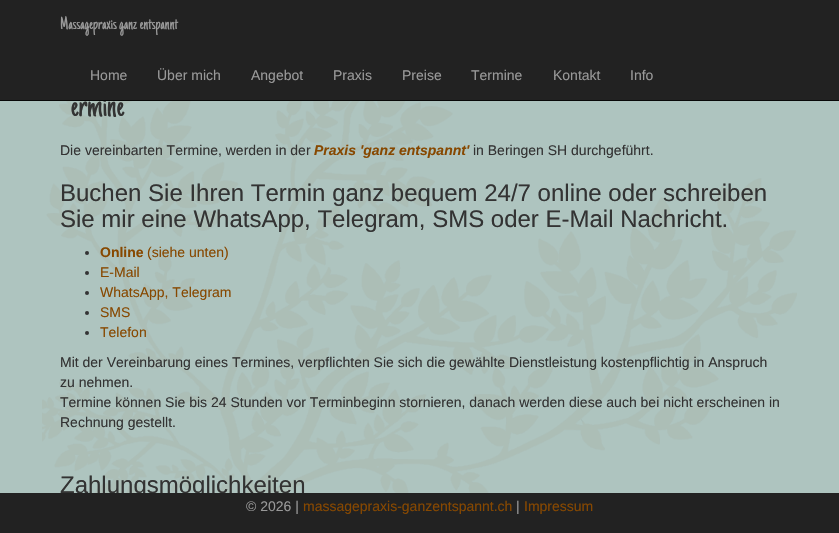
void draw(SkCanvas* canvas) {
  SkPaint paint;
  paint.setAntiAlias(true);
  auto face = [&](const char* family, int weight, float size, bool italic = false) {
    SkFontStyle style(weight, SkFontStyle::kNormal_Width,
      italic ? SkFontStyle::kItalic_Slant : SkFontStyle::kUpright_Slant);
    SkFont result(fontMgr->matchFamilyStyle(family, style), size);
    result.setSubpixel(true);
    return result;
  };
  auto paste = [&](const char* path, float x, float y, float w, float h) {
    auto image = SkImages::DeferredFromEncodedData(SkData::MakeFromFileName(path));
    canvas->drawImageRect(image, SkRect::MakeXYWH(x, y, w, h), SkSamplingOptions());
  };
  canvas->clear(0xffaec4bf);
  paste("img/1.png", 42, 101, 755, 392);
  paint.setColor(0xff333333);
  canvas->drawCircle(87, 253, 2, paint);
  canvas->drawCircle(87, 273, 2, paint);
  canvas->drawCircle(87, 293, 2, paint);
  canvas->drawCircle(87, 313, 2, paint);
  canvas->drawCircle(87, 333, 2, paint);
  auto f0 = face("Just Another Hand", 400, 36);
  canvas->drawString("ermine", 71, 116, f0, paint);
  paint.setColor(0xff222222);
  canvas->drawRect(SkRect::MakeXYWH(0, 0, 839, 100), paint);
  auto f1 = face("Liberation Sans", 400, 14);
  paint.setColor(0xff999999);
  {
    const struct { const char* s; float x, y; } items[] = {
      {"Info", 630, 80},
      {"Kontakt", 553, 80},
      {"Termine", 471, 80},
      {"Preise", 402, 80},
      {"Praxis", 333, 80},
      {"Angebot", 251, 80},
      {"Über mich", 157, 80},
      {"Home", 90, 80},
    };
    for (auto [s, x, y] : items) {
      canvas->drawString(s, x, y, f1, paint);
    }
  }
  auto f2 = face("Just Another Hand", 400, 18);
  canvas->drawString("Massagepraxis ganz entspannt", 60, 29, f2, paint);
  paint.setColor(0xff080808);
  canvas->drawRect(SkRect::MakeXYWH(0, 100, 839, 1), paint);
  paint.setColor(0xff333333);
  canvas->drawString("Die vereinbarten Termine, werden in der", 60, 155, f1, paint);
  auto f3 = face("Liberation Sans", 700, 14, true);
  paint.setColor(0xff874800);
  canvas->drawString("Praxis 'ganz entspannt'", 314, 155, f3, paint);
  paint.setColor(0xff333333);
  canvas->drawString("in Beringen SH durchgeführt.", 473, 155, f1, paint);
  auto f4 = face("Liberation Sans", 400, 24);
  canvas->drawString("Buchen Sie Ihren Termin ganz bequem 24/7 online oder schreiben", 60, 201, f4, paint);
  canvas->drawString("Sie mir eine WhatsApp, Telegram, SMS oder E-Mail Nachricht.", 60, 227, f4, paint);
  auto f5 = face("Liberation Sans", 700, 14);
  paint.setColor(0xff874800);
  canvas->drawString("Online", 100, 257, f5, paint);
  {
    const struct { const char* s; float x, y; } items[] = {
      {"(siehe unten)", 147, 257},
      {"E-Mail", 100, 277},
      {"WhatsApp, Telegram", 100, 297},
      {"SMS", 100, 317},
      {"Telefon", 100, 337},
    };
    for (auto [s, x, y] : items) {
      canvas->drawString(s, x, y, f1, paint);
    }
  }
  paint.setColor(0xff333333);
  {
    const struct { const char* s; float x, y; } items[] = {
      {"Mit der Vereinbarung eines Termines, verpflichten Sie sich die gewählte Dienstleistung kostenpflichtig in Anspruch", 60, 367},
      {"zu nehmen.", 60, 387},
      {"Termine können Sie bis 24 Stunden vor Terminbeginn stornieren, danach werden diese auch bei nicht erscheinen in", 60, 407},
      {"Rechnung gestellt.", 60, 427},
    };
    for (auto [s, x, y] : items) {
      canvas->drawString(s, x, y, f1, paint);
    }
  }
  canvas->drawString("Zahlungsmöglichkeiten", 60, 493, f4, paint);
  paint.setColor(0xff222222);
  canvas->drawRect(SkRect::MakeXYWH(0, 493, 839, 40), paint);
  paint.setColor(0xff999999);
  canvas->drawString("© 2026 |", 246, 511, f1, paint);
  paint.setColor(0xff874800);
  canvas->drawString("massagepraxis-ganzentspannt.ch", 303, 511, f1, paint);
  paint.setColor(0xff999999);
  canvas->drawString("|", 516, 511, f1, paint);
  paint.setColor(0xff874800);
  canvas->drawString("Impressum", 524, 511, f1, paint);
}
